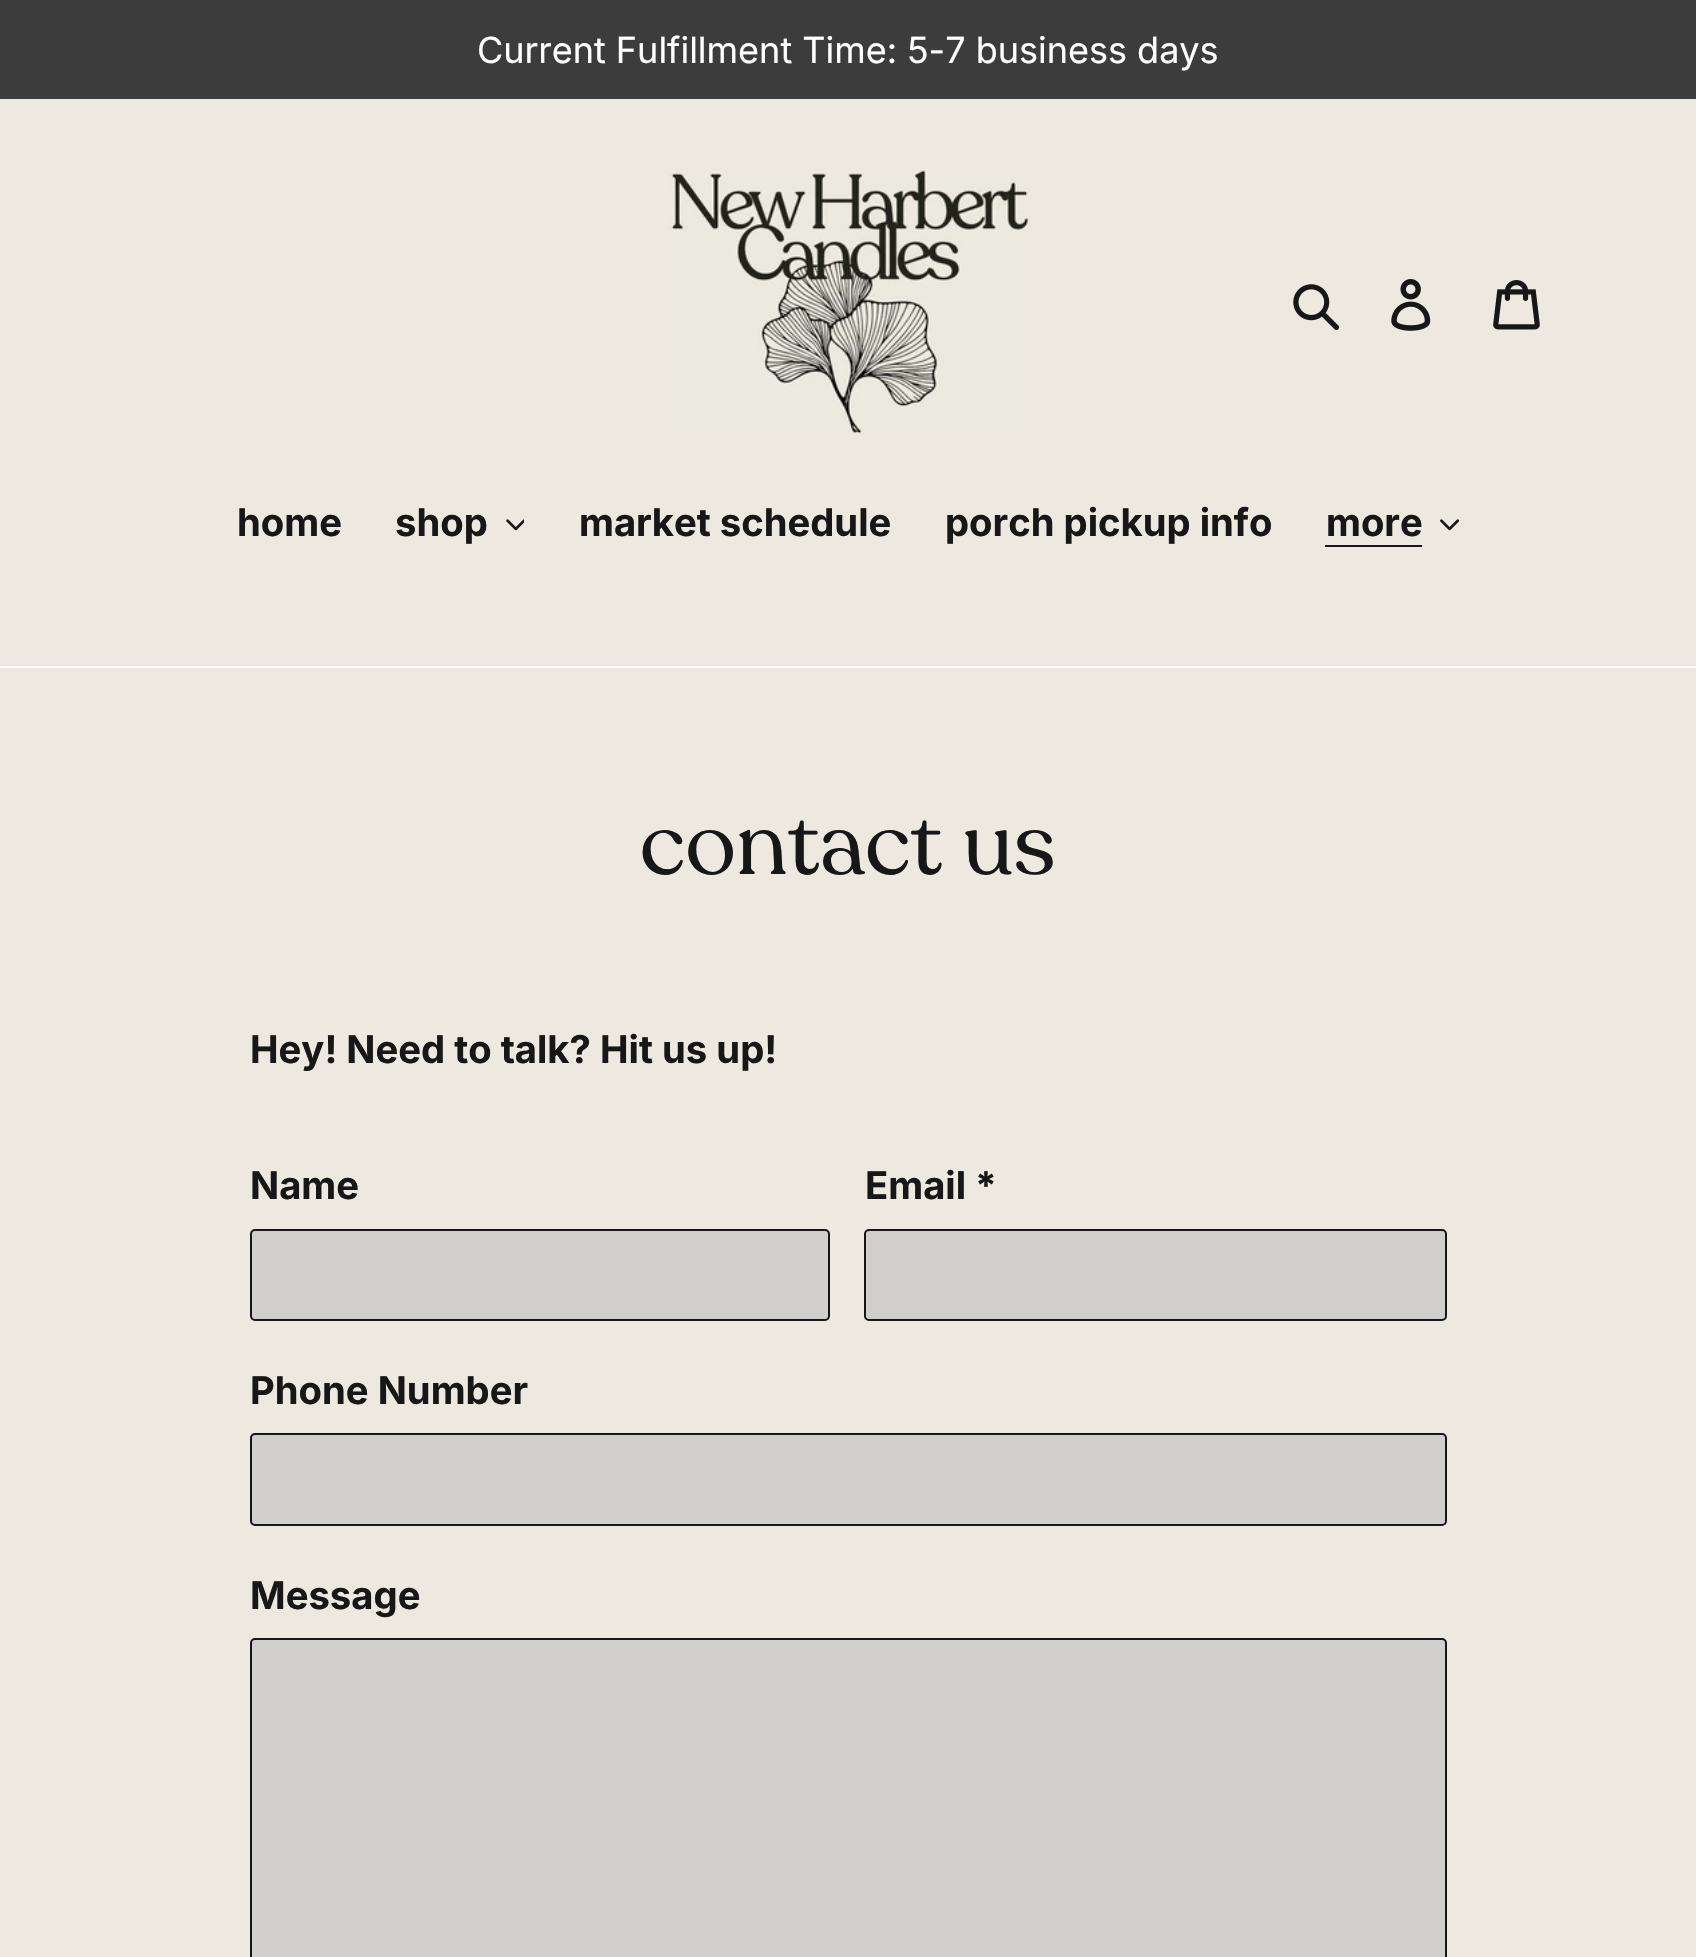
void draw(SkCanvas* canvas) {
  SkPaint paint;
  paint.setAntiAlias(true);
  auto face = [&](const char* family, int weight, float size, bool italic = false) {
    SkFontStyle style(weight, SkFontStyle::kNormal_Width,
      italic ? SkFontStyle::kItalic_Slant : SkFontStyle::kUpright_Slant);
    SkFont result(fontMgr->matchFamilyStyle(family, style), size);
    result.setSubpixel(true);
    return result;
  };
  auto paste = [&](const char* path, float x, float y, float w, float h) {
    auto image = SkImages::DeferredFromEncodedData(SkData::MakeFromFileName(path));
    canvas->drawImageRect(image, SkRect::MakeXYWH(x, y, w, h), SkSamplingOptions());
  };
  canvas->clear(0xffede8e0);
  paint.setColor(0xff3c3c3c);
  canvas->drawRect(SkRect::MakeXYWH(0, 0, 1696, 99), paint);
  paste("img/1.png", 667, 167, 363, 268);
  paste("img/2.png", 1293, 284, 47, 47);
  paste("img/3.png", 1391, 279, 40, 52);
  paste("img/4.png", 1493, 280, 47, 50);
  paint.setColor(0xfffefefe);
  canvas->drawRect(SkRect::MakeXYWH(0, 666, 1696, 2), paint);
  paste("img/5.png", 506, 519, 18, 12);
  paint.setColor(0xff171717);
  canvas->drawRect(SkRect::MakeXYWH(1325, 545, 97, 2), paint);
  paste("img/6.png", 1440, 519, 20, 12);
  paint.setColor(0xffd1cfcc);
  canvas->drawRoundRect(SkRect::MakeXYWH(251, 1230, 578, 90), 4, 4, paint);
  paint.setStroke(true);
  paint.setStrokeWidth(2);
  paint.setColor(0xff171717);
  canvas->drawRoundRect(SkRect::MakeXYWH(251, 1230, 578, 90), 4, 4, paint);
  paint.setStroke(false);
  paint.setColor(0xffd1cfcc);
  canvas->drawRoundRect(SkRect::MakeXYWH(865, 1230, 581, 90), 4, 4, paint);
  paint.setStroke(true);
  paint.setColor(0xff171717);
  canvas->drawRoundRect(SkRect::MakeXYWH(865, 1230, 581, 90), 4, 4, paint);
  paint.setStroke(false);
  paint.setColor(0xffd1cfcc);
  canvas->drawRoundRect(SkRect::MakeXYWH(251, 1434, 1195, 91), 4, 4, paint);
  paint.setStroke(true);
  paint.setColor(0xff171717);
  canvas->drawRoundRect(SkRect::MakeXYWH(251, 1434, 1195, 91), 4, 4, paint);
  paint.setStroke(false);
  paint.setColor(0xffd1cfcc);
  canvas->drawRoundRect(SkRect::MakeXYWH(251, 1639, 1195, 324), 4, 4, paint);
  paint.setStroke(true);
  paint.setColor(0xff171717);
  canvas->drawRoundRect(SkRect::MakeXYWH(251, 1639, 1195, 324), 4, 4, paint);
  auto f0 = face("Inter", 400, 36);
  paint.setStroke(false);
  paint.setColor(0xfffefefe);
  canvas->drawString("Current Fulfillment Time: 5-7 business days", 477, 63, f0, paint);
  auto f1 = face("Inter", 700, 38.25f);
  paint.setColor(0xff171717);
  {
    const struct { const char* s; float x, y; } items[] = {
      {"home", 237, 536},
      {"shop", 395, 536},
      {"market schedule", 579, 536},
      {"porch pickup info", 945, 536},
      {"more", 1326, 536},
    };
    for (auto [s, x, y] : items) {
      canvas->drawString(s, x, y, f1, paint);
    }
  }
  auto f2 = face("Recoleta", 400, 90);
  canvas->drawString("contact us", 640, 874, f2, paint);
  {
    const struct { const char* s; float x, y; } items[] = {
      {"Hey! Need to talk? Hit us up!", 250, 1063},
      {"Name", 250, 1199},
      {"Email *", 865, 1199},
      {"Phone Number", 250, 1404},
      {"Message", 250, 1609},
    };
    for (auto [s, x, y] : items) {
      canvas->drawString(s, x, y, f1, paint);
    }
  }
}
